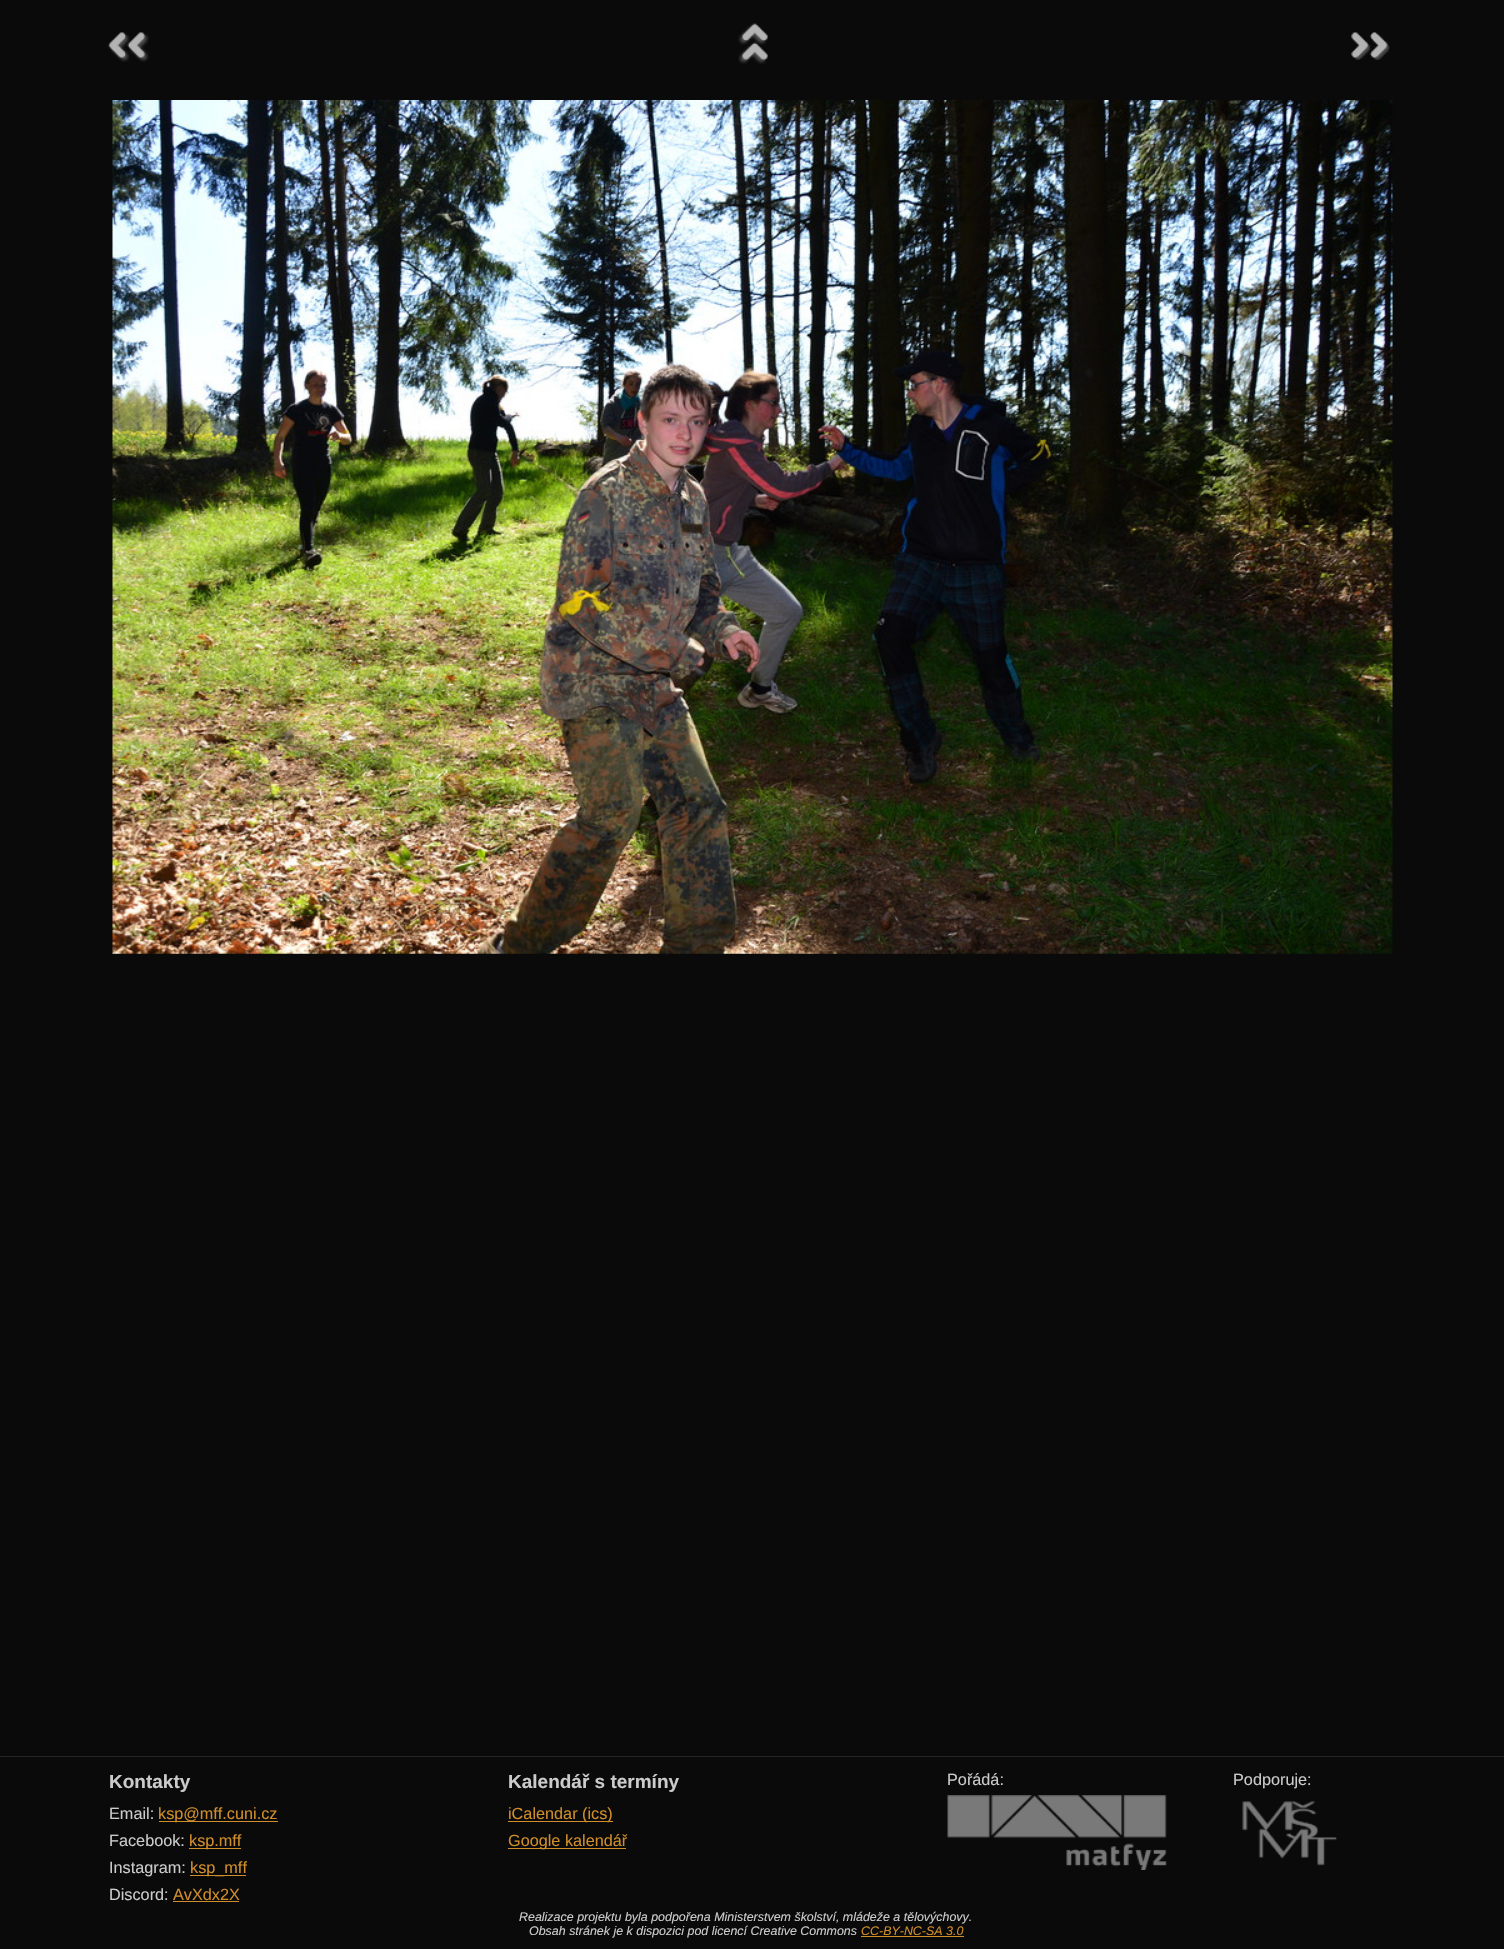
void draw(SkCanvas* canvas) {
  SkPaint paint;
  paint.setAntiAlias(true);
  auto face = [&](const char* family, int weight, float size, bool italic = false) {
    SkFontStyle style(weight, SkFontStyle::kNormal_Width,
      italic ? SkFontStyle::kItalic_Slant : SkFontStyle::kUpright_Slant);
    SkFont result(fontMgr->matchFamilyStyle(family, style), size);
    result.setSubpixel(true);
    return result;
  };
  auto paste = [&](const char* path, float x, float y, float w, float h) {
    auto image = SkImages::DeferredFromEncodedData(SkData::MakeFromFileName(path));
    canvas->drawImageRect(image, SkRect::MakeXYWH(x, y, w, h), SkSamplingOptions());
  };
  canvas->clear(0xff0a0a0a);
  paste("img/1.png", 108, 32, 41, 30);
  paste("img/2.png", 738, 23, 30, 41);
  paste("img/3.png", 1351, 32, 39, 28);
  paste("img/4.png", 112, 100, 1281, 854);
  {
    const struct { float x, y, w, h; SkColor color; } items[] = {
      {0, 1756, 1504, 1, 0xff252726},
      {159, 1821, 119, 1, 0xffd08e2a},
      {189, 1848, 52, 1, 0xffd08e2a},
      {190, 1875, 56, 1, 0xffd08e2a},
      {173, 1901, 66, 1, 0xffd08e2a},
      {508, 1821, 105, 1, 0xffd08e2a},
      {508, 1848, 118, 1, 0xffd08e2a},
    };
    for (auto [x, y, w, h, color] : items) {
      paint.setColor(color);
      canvas->drawRect(SkRect::MakeXYWH(x, y, w, h), paint);
    }
  }
  paste("img/5.png", 947, 1795, 220, 75);
  paste("img/6.png", 1242, 1801, 95, 65);
  canvas->drawRect(SkRect::MakeXYWH(861, 1936, 103, 1), paint);
  auto f0 = face("Liberation Sans", 700, 19);
  paint.setColor(0xffcbcbcb);
  canvas->drawString("Kontakty", 109, 1788, f0, paint);
  auto f1 = face("Liberation Sans", 400, 16.25f);
  canvas->drawString("Email:", 109, 1819, f1, paint);
  paint.setColor(0xffd08e2a);
  canvas->drawString("ksp@mff.cuni.cz", 158, 1819, f1, paint);
  paint.setColor(0xffcbcbcb);
  canvas->drawString("Facebook:", 109, 1846, f1, paint);
  paint.setColor(0xffd08e2a);
  canvas->drawString("ksp.mff", 189, 1846, f1, paint);
  paint.setColor(0xffcbcbcb);
  canvas->drawString("Instagram:", 109, 1873, f1, paint);
  paint.setColor(0xffd08e2a);
  canvas->drawString("ksp_mff", 190, 1873, f1, paint);
  paint.setColor(0xffcbcbcb);
  canvas->drawString("Discord:", 109, 1900, f1, paint);
  paint.setColor(0xffd08e2a);
  canvas->drawString("AvXdx2X", 173, 1900, f1, paint);
  paint.setColor(0xffcbcbcb);
  canvas->drawString("Kalendář s termíny", 508, 1788, f0, paint);
  paint.setColor(0xffd08e2a);
  canvas->drawString("iCalendar (ics)", 508, 1819, f1, paint);
  canvas->drawString("Google kalendář", 508, 1846, f1, paint);
  paint.setColor(0xffcbcbcb);
  canvas->drawString("Pořádá:", 947, 1785, f1, paint);
  canvas->drawString("Podporuje:", 1233, 1785, f1, paint);
  auto f2 = face("Liberation Sans", 400, 12.45f, true);
  canvas->drawString("Realizace projektu byla podpořena Ministerstvem školství, mládeže a tělovýchovy.", 519, 1921, f2, paint);
  canvas->drawString("Obsah stránek je k dispozici pod licencí Creative Commons", 529, 1935, f2, paint);
  paint.setColor(0xffd08e2a);
  canvas->drawString("CC-BY-NC-SA 3.0", 861, 1935, f2, paint);
}
